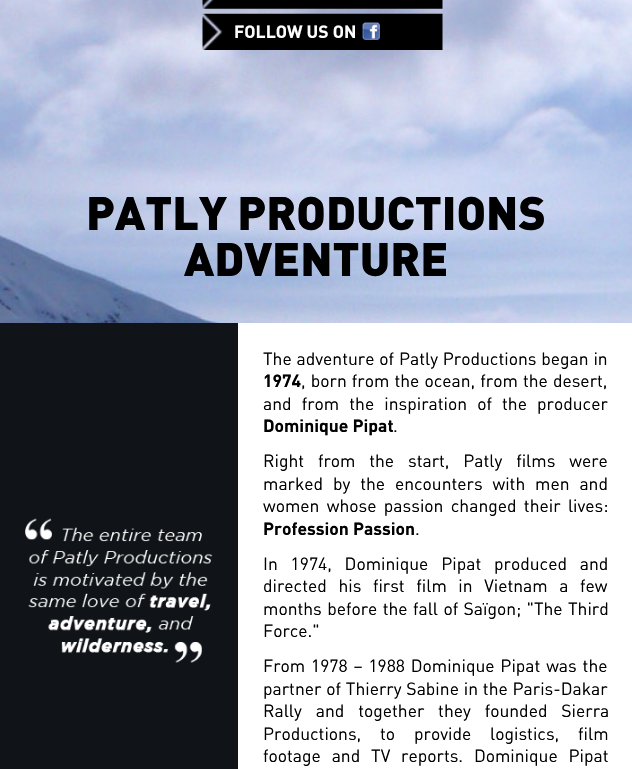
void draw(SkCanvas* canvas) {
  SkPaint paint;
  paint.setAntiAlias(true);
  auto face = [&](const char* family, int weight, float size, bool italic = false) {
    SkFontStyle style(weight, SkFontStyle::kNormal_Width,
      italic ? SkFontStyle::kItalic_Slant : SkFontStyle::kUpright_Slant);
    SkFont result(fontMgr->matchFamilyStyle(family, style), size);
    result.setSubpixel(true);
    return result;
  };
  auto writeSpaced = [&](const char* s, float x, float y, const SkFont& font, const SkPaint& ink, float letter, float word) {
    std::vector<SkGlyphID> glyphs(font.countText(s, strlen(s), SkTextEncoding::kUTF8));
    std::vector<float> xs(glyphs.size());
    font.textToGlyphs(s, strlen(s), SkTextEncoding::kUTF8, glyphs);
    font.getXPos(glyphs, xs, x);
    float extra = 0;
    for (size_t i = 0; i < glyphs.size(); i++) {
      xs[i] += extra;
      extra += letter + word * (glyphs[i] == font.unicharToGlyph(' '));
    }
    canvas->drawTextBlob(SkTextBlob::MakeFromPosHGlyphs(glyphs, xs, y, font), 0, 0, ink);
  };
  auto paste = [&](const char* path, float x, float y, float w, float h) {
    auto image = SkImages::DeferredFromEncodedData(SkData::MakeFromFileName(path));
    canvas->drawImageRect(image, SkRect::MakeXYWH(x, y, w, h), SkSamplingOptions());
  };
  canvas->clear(0xffffffff);
  paste("img/1.png", 0, 0, 632, 323);
  paste("img/2.png", 202, 0, 241, 9);
  paste("img/3.png", 202, 13, 241, 37);
  paste("img/4.png", 362, 22, 18, 18);
  paint.setColor(0xff101317);
  canvas->drawRect(SkRect::MakeXYWH(0, 323, 238, 446), paint);
  paste("img/5.png", 25, 518, 188, 145);
  auto f0 = face("DIN", 700, 17.5f);
  paint.setColor(0xffffffff);
  canvas->drawString("FOLLOW US ON", 234, 38, f0, paint);
  auto f1 = face("DIN", 900, 46.25f);
  paint.setColor(0xff000000);
  canvas->drawString("PATLY PRODUCTIONS", 86, 230, f1, paint);
  canvas->drawString("ADVENTURE", 184, 276, f1, paint);
  auto f2 = face("DIN", 400, 17.5f);
  writeSpaced("The adventure of Patly Productions began in", 263, 365, f2, paint, 0, 0.5f);
  canvas->drawString("1974", 263, 387, f0, paint);
  writeSpaced(", born from the ocean, from the desert,", 301, 387, f2, paint, 0, 0.75f);
  writeSpaced("and from the inspiration of the producer", 263, 410, f2, paint, 0, 5.75f);
  canvas->drawString("Dominique Pipat", 263, 432, f0, paint);
  canvas->drawString(".", 393, 432, f2, paint);
  writeSpaced("Right from the start, Patly films were", 263, 467, f2, paint, 0, 9.5f);
  writeSpaced("marked by the encounters with men and", 263, 490, f2, paint, 0, 5.5f);
  writeSpaced("women whose passion changed their lives:", 263, 512, f2, paint, 0, 3);
  canvas->drawString("Profession Passion", 263, 535, f0, paint);
  canvas->drawString(".", 415, 535, f2, paint);
  writeSpaced("In 1974, Dominique Pipat produced and", 263, 570, f2, paint, 0, 8.5f);
  writeSpaced("directed his first film in Vietnam a few", 263, 592, f2, paint, 0, 7.25f);
  writeSpaced("months before the fall of Saïgon; \"The Third", 263, 615, f2, paint, 0, 1);
  canvas->drawString("Force.\"", 263, 637, f2, paint);
  writeSpaced("From 1978 – 1988 Dominique Pipat was the", 263, 672, f2, paint, 0, 1.5f);
  writeSpaced("partner of Thierry Sabine in the Paris-Dakar", 263, 695, f2, paint, 0, 0.5f);
  writeSpaced("Rally and together they founded Sierra", 263, 717, f2, paint, 0, 9.5f);
  writeSpaced("Productions, to provide logistics, film", 263, 740, f2, paint, 0, 14.5f);
  writeSpaced("footage and TV reports. Dominique Pipat", 263, 762, f2, paint, 0, 6.5f);
}
